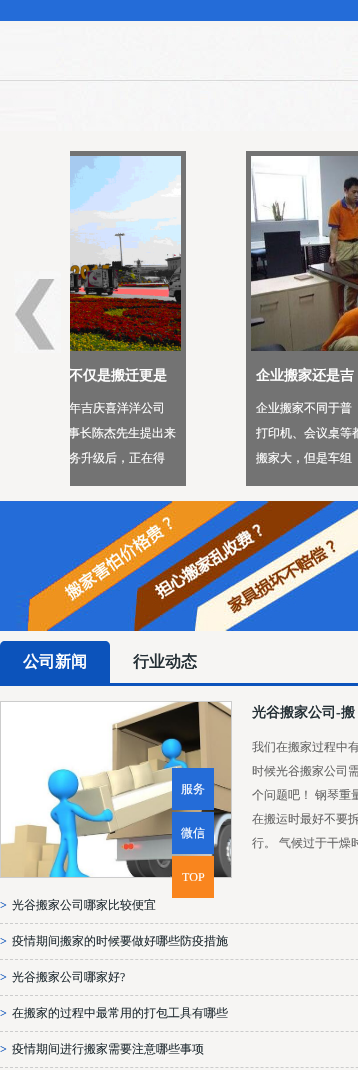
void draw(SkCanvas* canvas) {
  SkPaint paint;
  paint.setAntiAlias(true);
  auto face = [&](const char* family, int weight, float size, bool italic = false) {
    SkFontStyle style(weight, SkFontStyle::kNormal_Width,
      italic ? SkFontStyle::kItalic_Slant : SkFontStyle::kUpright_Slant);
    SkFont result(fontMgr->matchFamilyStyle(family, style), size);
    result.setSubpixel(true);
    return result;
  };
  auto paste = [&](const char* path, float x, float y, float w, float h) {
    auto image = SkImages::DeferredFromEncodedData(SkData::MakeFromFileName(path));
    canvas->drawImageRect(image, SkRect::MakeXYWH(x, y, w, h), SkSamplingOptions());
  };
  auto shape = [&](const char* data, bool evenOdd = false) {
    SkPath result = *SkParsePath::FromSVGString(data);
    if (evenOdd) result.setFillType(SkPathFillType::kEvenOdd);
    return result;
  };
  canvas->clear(0xfff6f5f3);
  paint.setColor(0xff246cd8);
  canvas->drawRect(SkRect::MakeXYWH(0, 0, 358, 21), paint);
  paste("img/1.png", 0, 26, 358, 105);
  paste("img/2.png", 14, 271, 47, 82);
  paint.setColor(0xff737373);
  canvas->drawRect(SkRect::MakeXYWH(70, 151, 116, 335), paint);
  paste("img/3.png", 70, 156, 111, 195);
  canvas->drawRect(SkRect::MakeXYWH(246, 151, 112, 335), paint);
  paste("img/4.png", 251, 156, 107, 195);
  paste("img/5.png", 0, 501, 358, 130);
  paint.setColor(0xff0c53bb);
  canvas->drawRect(SkRect::MakeXYWH(0, 683, 358, 3), paint);
  canvas->drawPath(shape("M5 641H105C108 641 110 643 110 646V683H0V646C0 643 2 641 5 641Z"), paint);
  paint.setStroke(true);
  paint.setStrokeWidth(1);
  paint.setColor(0xffcccccc);
  canvas->drawRect(SkRect::MakeXYWH(0.5f, 701.5f, 231, 176), paint);
  paste("img/6.png", 1, 702, 230, 175);
  paint.setPathEffect(SkDashPathEffect::Make({{3, 2.01f}}, 0));
  canvas->drawPath(shape("M0 923.5H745"), paint);
  paint.setPathEffect(nullptr);
  paint.setPathEffect(SkDashPathEffect::Make({{3, 2.01f}}, 0));
  canvas->drawPath(shape("M0 959.5H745"), paint);
  paint.setPathEffect(nullptr);
  paint.setPathEffect(SkDashPathEffect::Make({{3, 2.01f}}, 0));
  canvas->drawPath(shape("M0 995.5H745"), paint);
  paint.setPathEffect(nullptr);
  paint.setPathEffect(SkDashPathEffect::Make({{3, 2.01f}}, 0));
  canvas->drawPath(shape("M0 1031.5H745"), paint);
  paint.setPathEffect(nullptr);
  paint.setPathEffect(SkDashPathEffect::Make({{3, 2.01f}}, 0));
  canvas->drawPath(shape("M0 1067.5H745"), paint);
  paint.setPathEffect(nullptr);
  paint.setStroke(false);
  {
    const struct { float x, y, w, h; SkColor color; } items[] = {
      {172, 768, 42, 42, 0xff246cd8},
      {172, 812, 42, 42, 0xff246cd8},
      {172, 856, 42, 42, 0xfff9851e},
    };
    for (auto [x, y, w, h, color] : items) {
      paint.setColor(color);
      canvas->drawRect(SkRect::MakeXYWH(x, y, w, h), paint);
    }
  }
  canvas->save();
  canvas->clipRect(SkRect::MakeXYWH(70, 361, 106, 30));
  auto f0 = face("WenQuanYi Zen Hei", 700, 14);
  paint.setColor(0xffffffff);
  canvas->drawString("不仅是搬迁更是", 69, 380, f0, paint);
  canvas->restore();
  canvas->save();
  canvas->clipRect(SkRect::MakeXYWH(70, 396, 106, 75));
  auto f1 = face("WenQuanYi Zen Hei", 500, 12);
  canvas->drawString("年吉庆喜洋洋公司", 69, 412, f1, paint);
  canvas->drawString("事长陈杰先生提出来", 68, 437, f1, paint);
  canvas->restore();
  canvas->drawString("务升级后，正在得", 69, 462, f1, paint);
  canvas->drawString("企业搬家还是吉", 256, 380, f0, paint);
  {
    const struct { const char* s; float x, y; } items[] = {
      {"企业搬家不同于普", 256, 412},
      {"打印机、会议桌等都", 256, 437},
      {"搬家大，但是车组", 256, 462},
    };
    for (auto [s, x, y] : items) {
      canvas->drawString(s, x, y, f1, paint);
    }
  }
  auto f2 = face("WenQuanYi Zen Hei", 700, 16);
  canvas->drawString("公司新闻", 23, 667, f2, paint);
  paint.setColor(0xff253036);
  canvas->drawString("行业动态", 133, 667, f2, paint);
  canvas->drawString("光谷搬家公司", 252, 717, f0, paint);
  auto f3 = face("Liberation Serif", 700, 14);
  canvas->drawString("-", 336, 717, f3, paint);
  canvas->drawString("搬", 341, 717, f0, paint);
  paint.setColor(0xff666666);
  {
    const struct { const char* s; float x, y; } items[] = {
      {"我们在搬家过程中有", 252, 751},
      {"时候光谷搬家公司需", 252, 775},
      {"个问题吧！", 252, 799},
      {"钢琴重量", 315, 799},
      {"在搬运时最好不要拆", 252, 823},
      {"行。", 252, 847},
      {"气候过于干燥时", 279, 847},
    };
    for (auto [s, x, y] : items) {
      canvas->drawString(s, x, y, f1, paint);
    }
  }
  auto f4 = face("Liberation Serif", 400, 12);
  paint.setColor(0xff0c53bb);
  canvas->drawString(">", 0, 909, f4, paint);
  paint.setColor(0xff253036);
  canvas->drawString("光谷搬家公司哪家比较便宜", 12, 909, f1, paint);
  paint.setColor(0xff0c53bb);
  canvas->drawString(">", 0, 945, f4, paint);
  paint.setColor(0xff253036);
  canvas->drawString("疫情期间搬家的时候要做好哪些防疫措施", 12, 945, f1, paint);
  paint.setColor(0xff0c53bb);
  canvas->drawString(">", 0, 981, f4, paint);
  paint.setColor(0xff253036);
  canvas->drawString("光谷搬家公司哪家好", 12, 981, f1, paint);
  canvas->drawString("?", 120, 981, f4, paint);
  paint.setColor(0xff0c53bb);
  canvas->drawString(">", 0, 1017, f4, paint);
  paint.setColor(0xff253036);
  canvas->drawString("在搬家的过程中最常用的打包工具有哪些", 12, 1017, f1, paint);
  paint.setColor(0xff0c53bb);
  canvas->drawString(">", 0, 1053, f4, paint);
  paint.setColor(0xff253036);
  canvas->drawString("疫情期间进行搬家需要注意哪些事项", 12, 1053, f1, paint);
  paint.setColor(0xffffffff);
  canvas->drawString("服务", 181, 793, f1, paint);
  canvas->drawString("微信", 181, 837, f1, paint);
  canvas->drawString("TOP", 182, 881, f4, paint);
}
